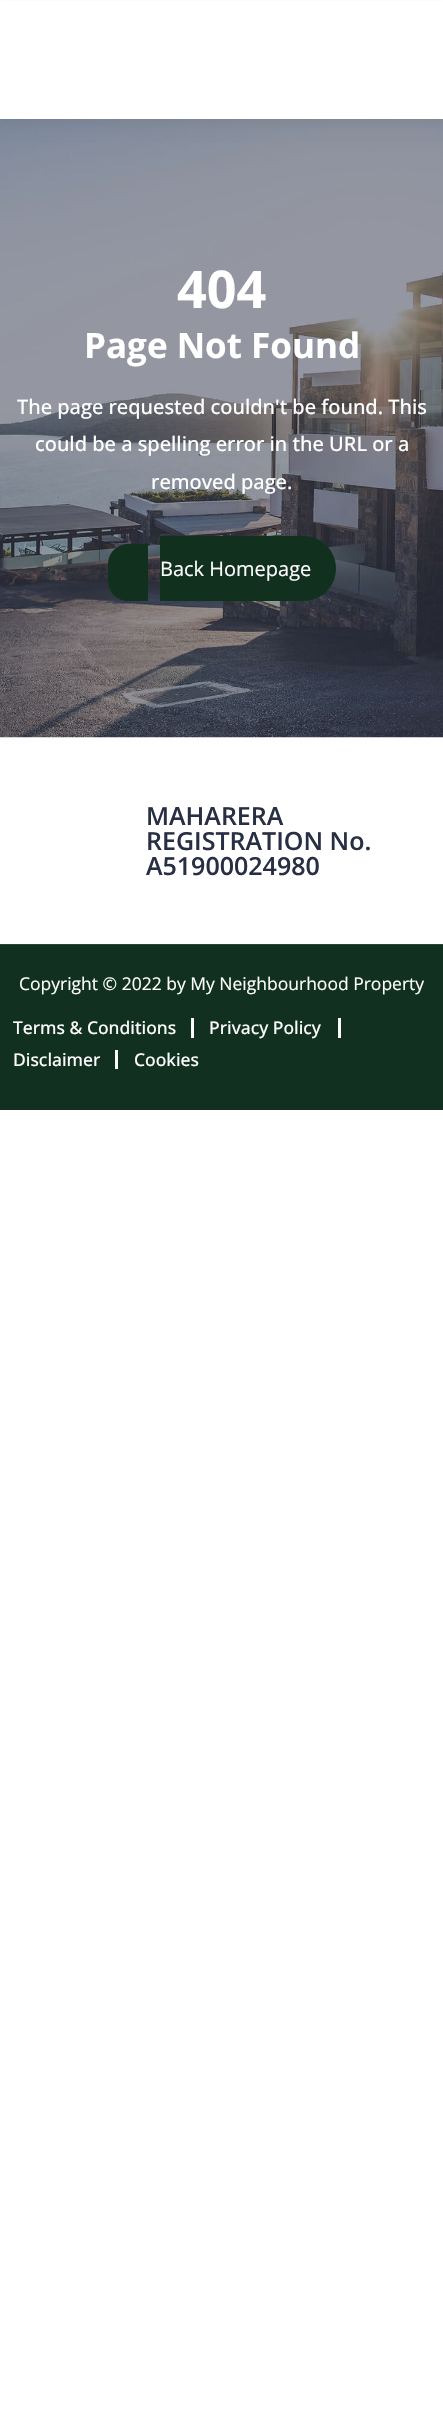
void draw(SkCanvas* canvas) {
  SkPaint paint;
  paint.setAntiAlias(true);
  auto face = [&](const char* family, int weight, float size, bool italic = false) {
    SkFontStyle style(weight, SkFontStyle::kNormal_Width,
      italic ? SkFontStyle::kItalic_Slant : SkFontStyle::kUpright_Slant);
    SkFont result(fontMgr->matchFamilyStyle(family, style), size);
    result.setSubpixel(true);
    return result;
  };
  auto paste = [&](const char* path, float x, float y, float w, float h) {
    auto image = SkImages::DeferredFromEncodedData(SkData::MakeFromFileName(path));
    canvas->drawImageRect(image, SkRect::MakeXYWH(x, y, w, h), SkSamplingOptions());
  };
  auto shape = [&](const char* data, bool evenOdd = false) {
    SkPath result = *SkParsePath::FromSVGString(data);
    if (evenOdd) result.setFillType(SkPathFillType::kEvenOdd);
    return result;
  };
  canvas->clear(0xffffffff);
  paste("img/1.png", 0, 119, 443, 619);
  paint.setColor(0x0d000000);
  paint.setMaskFilter(SkMaskFilter::MakeBlur(kNormal_SkBlurStyle, 6));
  canvas->drawRect(SkRect::MakeXYWH(0, 6, 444, 119), paint);
  paint.setMaskFilter(nullptr);
  paint.setColor(0xffffffff);
  canvas->drawRect(SkRect::MakeXYWH(0, 1, 443, 118), paint);
  paint.setColor(0xff12301e);
  canvas->drawPath(shape("M128 544H148V601H128C117 601 108 592 108 581V564C108 553 117 544 128 544Z"), paint);
  canvas->drawPath(shape("M160 536H303.5C321.5 536 336 550.5 336 568.5C336 586.5 321.5 601 303.5 601H160Z"), paint);
  {
    const struct { float x, y, w, h; SkColor color; } items[] = {
      {0, 945, 443, 165, 0xff11301f},
      {0, 944, 443, 1, 0xff294535},
      {191, 1018, 3, 20, 0xffffffff},
      {338, 1018, 3, 20, 0xffffffff},
      {115, 1050, 3, 19, 0xffffffff},
    };
    for (auto [x, y, w, h, color] : items) {
      paint.setColor(color);
      canvas->drawRect(SkRect::MakeXYWH(x, y, w, h), paint);
    }
  }
  auto f0 = face("Open Sans", 700, 52);
  canvas->drawString("404", 177, 308, f0, paint);
  auto f1 = face("Open Sans", 700, 35);
  canvas->drawString("Page Not Found", 84, 358, f1, paint);
  auto f2 = face("Open Sans", 500, 20);
  {
    const struct { const char* s; float x, y; } items[] = {
      {"The page requested couldn't be found. This", 17, 414},
      {"could be a spelling error in the URL or a", 35, 451},
      {"removed page.", 151, 489},
    };
    for (auto [s, x, y] : items) {
      canvas->drawString(s, x, y, f2, paint);
    }
  }
  auto f3 = face("Open Sans", 400, 20);
  canvas->drawString("Back Homepage", 160, 576, f3, paint);
  auto f4 = face("Open Sans", 600, 25);
  paint.setColor(0xff282f44);
  {
    const struct { const char* s; float x, y; } items[] = {
      {"MAHARERA", 146, 825},
      {"REGISTRATION No.", 146, 850},
      {"A51900024980", 146, 875},
    };
    for (auto [s, x, y] : items) {
      canvas->drawString(s, x, y, f4, paint);
    }
  }
  auto f5 = face("Open Sans", 400, 17.5f);
  paint.setColor(0xffffffff);
  canvas->drawString("Copyright © 2022 by My Neighbourhood Property", 19, 990, f5, paint);
  auto f6 = face("Open Sans", 500, 17.5f);
  {
    const struct { const char* s; float x, y; } items[] = {
      {"Terms & Conditions", 13, 1034},
      {"Privacy Policy", 209, 1034},
      {"Disclaimer", 13, 1066},
      {"Cookies", 134, 1066},
    };
    for (auto [s, x, y] : items) {
      canvas->drawString(s, x, y, f6, paint);
    }
  }
}
